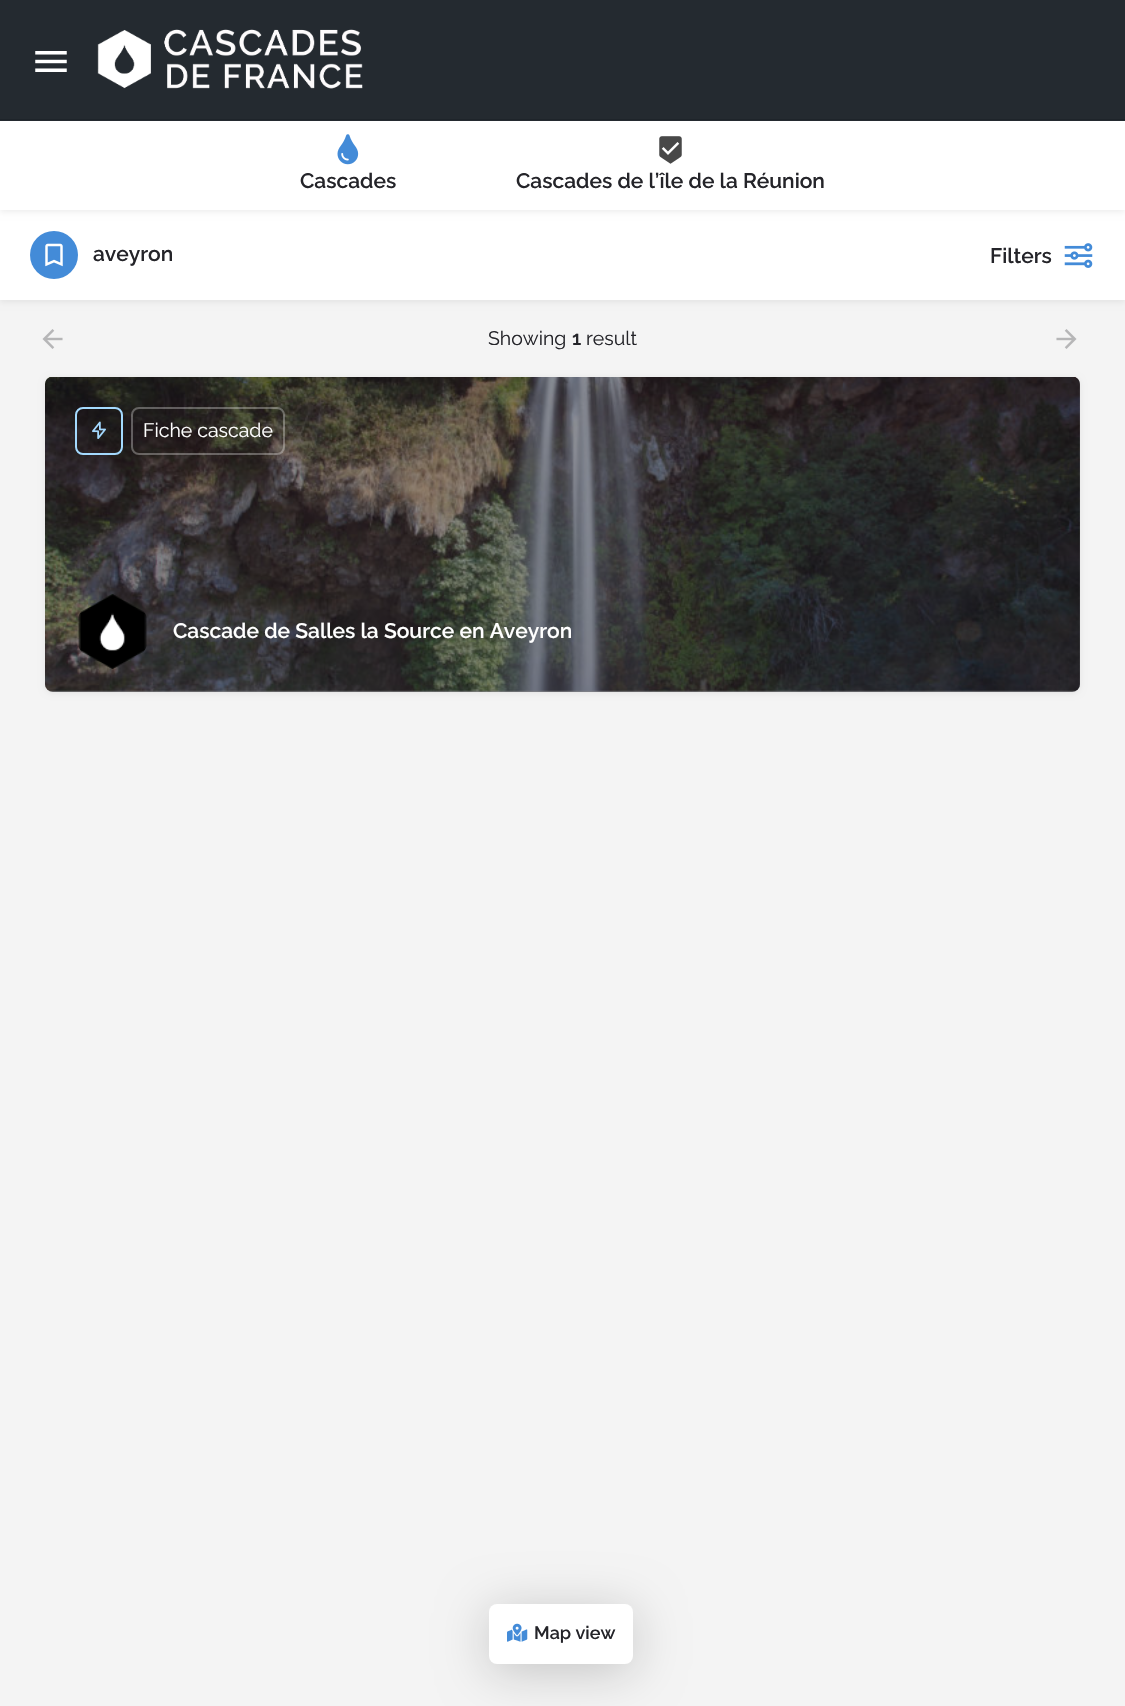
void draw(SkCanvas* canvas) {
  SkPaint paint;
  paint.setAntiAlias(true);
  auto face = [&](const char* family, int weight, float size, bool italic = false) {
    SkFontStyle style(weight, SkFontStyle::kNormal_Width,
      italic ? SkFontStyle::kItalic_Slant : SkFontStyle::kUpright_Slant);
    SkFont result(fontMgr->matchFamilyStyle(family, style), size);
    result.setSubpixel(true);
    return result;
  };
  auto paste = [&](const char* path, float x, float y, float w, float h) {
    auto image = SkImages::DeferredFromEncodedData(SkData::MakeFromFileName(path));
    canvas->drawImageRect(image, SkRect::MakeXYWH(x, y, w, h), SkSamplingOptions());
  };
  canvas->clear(0xfff4f4f4);
  paint.setColor(0x12000000);
  paint.setMaskFilter(SkMaskFilter::MakeBlur(kNormal_SkBlurStyle, 3));
  canvas->drawRect(SkRect::MakeXYWH(0, 212, 1125, 90), paint);
  paint.setMaskFilter(nullptr);
  paint.setColor(0xffffffff);
  canvas->drawRect(SkRect::MakeXYWH(0, 210, 1125, 90), paint);
  paint.setColor(0x12000000);
  paint.setMaskFilter(SkMaskFilter::MakeBlur(kNormal_SkBlurStyle, 3));
  canvas->drawRect(SkRect::MakeXYWH(0, 122, 1125, 90), paint);
  paint.setMaskFilter(nullptr);
  {
    const struct { float x, y, w, h; SkColor color; } items[] = {
      {0, 0, 1125, 120, 0xf71d2329},
      {0, 120, 1125, 90, 0xffffffff},
      {0, 119, 1125, 2, 0xf71d2329},
    };
    for (auto [x, y, w, h, color] : items) {
      paint.setColor(color);
      canvas->drawRect(SkRect::MakeXYWH(x, y, w, h), paint);
    }
  }
  paste("img/1.png", 35, 51, 32, 21);
  paste("img/2.png", 97, 29, 266, 60);
  paste("img/3.png", 337, 134, 22, 31);
  paste("img/4.png", 659, 136, 23, 28);
  paint.setColor(0xff438bd8);
  canvas->drawCircle(54, 255, 24, paint);
  paste("img/5.png", 45, 243, 18, 24);
  paste("img/6.png", 1064, 243, 29, 25);
  paste("img/7.png", 42, 329, 21, 20);
  paste("img/8.png", 1056, 329, 21, 20);
  paint.setColor(0x12000000);
  paint.setMaskFilter(SkMaskFilter::MakeBlur(kNormal_SkBlurStyle, 3));
  canvas->drawRoundRect(SkRect::MakeXYWH(45, 378, 1035, 315), 8, 8, paint);
  paint.setMaskFilter(nullptr);
  paste("img/9.png", 45, 377, 1035, 315);
  paint.setColor(0x80242429);
  canvas->drawRoundRect(SkRect::MakeXYWH(45, 377, 1035, 315), 8, 8, paint);
  paint.setStroke(true);
  paint.setStrokeWidth(2);
  paint.setColor(0xffa4daff);
  canvas->drawRoundRect(SkRect::MakeXYWH(76, 408, 46, 46), 7, 7, paint);
  paste("img/10.png", 92, 421, 14, 18);
  paint.setColor(0x4dffffff);
  canvas->drawRoundRect(SkRect::MakeXYWH(132, 408, 152, 46), 7, 7, paint);
  paste("img/11.png", 78, 594, 69, 75);
  paint.setStroke(false);
  paint.setColor(0x33000000);
  paint.setMaskFilter(SkMaskFilter::MakeBlur(kNormal_SkBlurStyle, 25));
  canvas->drawRoundRect(SkRect::MakeXYWH(489, 1611, 144, 60), 8, 8, paint);
  paint.setMaskFilter(nullptr);
  paint.setColor(0xffffffff);
  canvas->drawRoundRect(SkRect::MakeXYWH(489, 1604, 144, 60), 8, 8, paint);
  paste("img/12.png", 507, 1623, 21, 19);
  auto f0 = face("Raleway", 600, 21);
  paint.setColor(0xff242429);
  {
    const struct { const char* s; float x, y; } items[] = {
      {"Cascades", 300, 188},
      {"Cascades de l’île de la Réunion", 516, 188},
      {"aveyron", 93, 261},
      {"Filters", 990, 263},
    };
    for (auto [s, x, y] : items) {
      canvas->drawString(s, x, y, f0, paint);
    }
  }
  auto f1 = face("Raleway", 400, 19.5f);
  canvas->drawString("Showing", 488, 345, f1, paint);
  auto f2 = face("Raleway", 600, 19.5f);
  canvas->drawString("1", 572, 345, f2, paint);
  canvas->drawString("result", 586, 345, f1, paint);
  paint.setColor(0xffffffff);
  canvas->drawString("Fiche cascade", 143, 437, f1, paint);
  canvas->drawString("Cascade de Salles la Source en Aveyron", 173, 638, f0, paint);
  auto f3 = face("Raleway", 600, 18);
  paint.setColor(0xff242429);
  canvas->drawString("Map view", 534, 1639, f3, paint);
}
